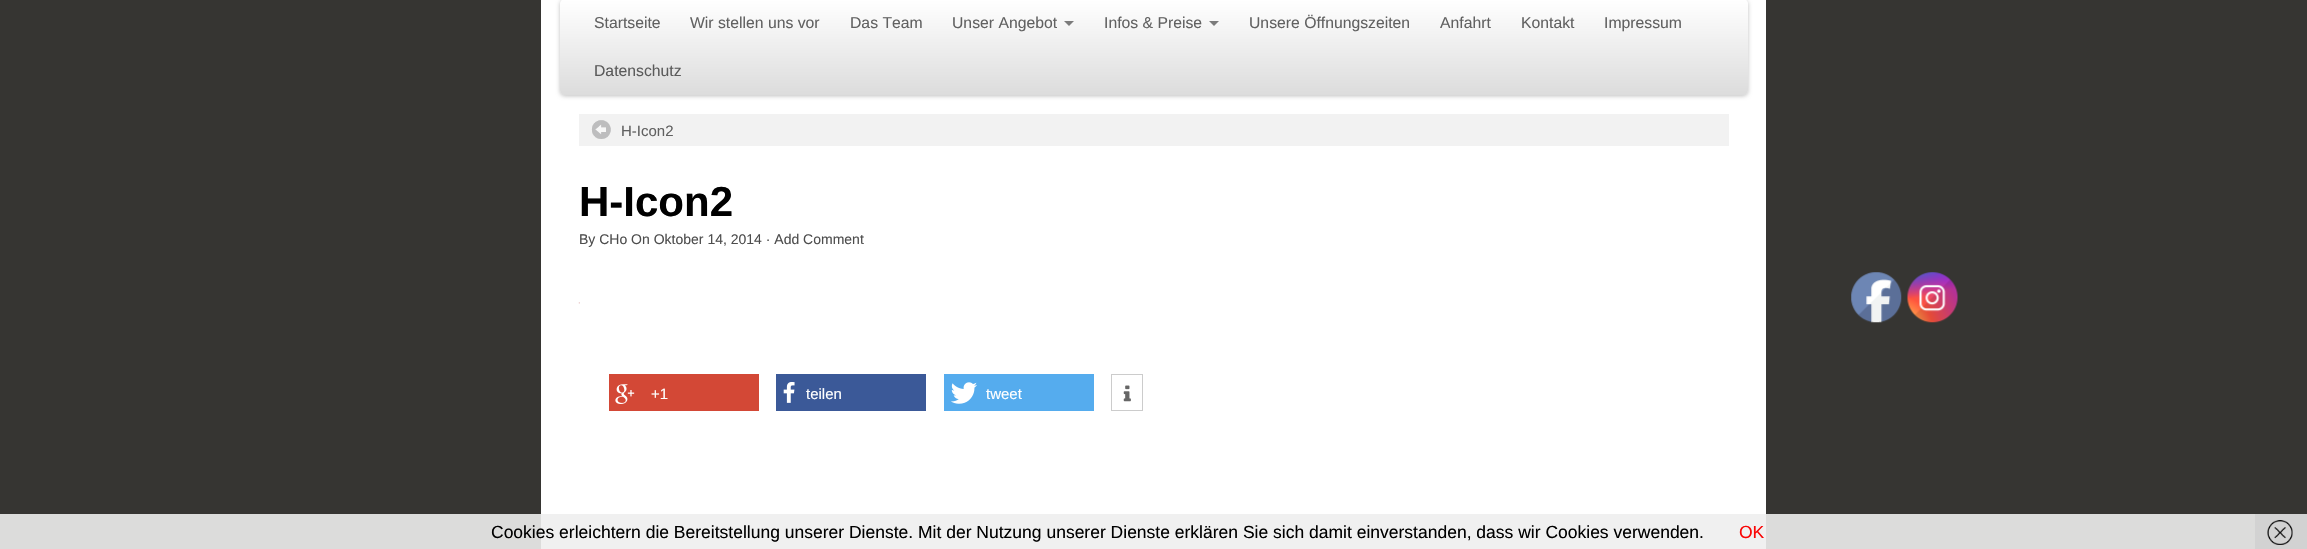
void draw(SkCanvas* canvas) {
  SkPaint paint;
  paint.setAntiAlias(true);
  auto face = [&](const char* family, int weight, float size, bool italic = false) {
    SkFontStyle style(weight, SkFontStyle::kNormal_Width,
      italic ? SkFontStyle::kItalic_Slant : SkFontStyle::kUpright_Slant);
    SkFont result(fontMgr->matchFamilyStyle(family, style), size);
    result.setSubpixel(true);
    return result;
  };
  auto paste = [&](const char* path, float x, float y, float w, float h) {
    auto image = SkImages::DeferredFromEncodedData(SkData::MakeFromFileName(path));
    canvas->drawImageRect(image, SkRect::MakeXYWH(x, y, w, h), SkSamplingOptions());
  };
  auto shape = [&](const char* data, bool evenOdd = false) {
    SkPath result = *SkParsePath::FromSVGString(data);
    if (evenOdd) result.setFillType(SkPathFillType::kEvenOdd);
    return result;
  };
  canvas->clear(0xff363532);
  paint.setColor(0xffdcdcdb);
  canvas->drawRect(SkRect::MakeXYWH(0, 514, 2255, 35), paint);
  paint.setColor(0xffffffff);
  canvas->drawRect(SkRect::MakeXYWH(541, 0, 1225, 514), paint);
  paint.setColor(0x40000000);
  paint.setMaskFilter(SkMaskFilter::MakeBlur(kNormal_SkBlurStyle, 2));
  canvas->drawRoundRect(SkRect::MakeXYWH(560, 0, 1188, 96), 5, 5, paint);
  paint.setMaskFilter(nullptr);
  paint.setColor(0xfff1f1f1);
  canvas->drawRoundRect(SkRect::MakeXYWH(560, -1, 1188, 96), 5, 5, paint);
  canvas->save();
  canvas->clipPath(shape("M565-1H1743C1746-1 1748 1 1748 4V90C1748 93 1746 95 1743 95H565C562 95 560 93 560 90V4C560 1 562-1 565-1Z"), true);
  {
    const SkColor colors[] = {0xffffffff, 0xffdcdcdc};
    const float stops[] = {0, 1};
    const SkPoint ends[] = {{1154, 0}, {1154, 95}};
    paint.setShader(SkGradientShader::MakeLinear(ends, colors, stops, 2, SkTileMode::kClamp));
    paint.setAlpha(255);
  }
  canvas->drawPath(shape("M560 0H1748V90C1748 93 1746 95 1743 95H565C562 95 560 93 560 90Z"), paint);
  canvas->restore();
  paint.setShader(nullptr);
  paint.setColor(0xff7b7b7b);
  canvas->drawPath(shape("M1064 21H1074L1069 26Z"), paint);
  canvas->drawPath(shape("M1209 21H1219L1214 26Z"), paint);
  paint.setColor(0xfff0f0f0);
  canvas->drawRect(SkRect::MakeXYWH(541, 514, 1225, 35), paint);
  paint.setColor(0xfff2f2f2);
  canvas->drawRect(SkRect::MakeXYWH(579, 114, 1150, 32), paint);
  paste("img/1.png", 591, 120, 20, 19);
  paste("img/2.png", 578, 302, 2, 2);
  paint.setColor(0xffd34836);
  canvas->drawRect(SkRect::MakeXYWH(609, 374, 150, 37), paint);
  paste("img/3.png", 615, 384, 20, 20);
  paint.setColor(0xff3b5998);
  canvas->drawRect(SkRect::MakeXYWH(776, 374, 150, 37), paint);
  paste("img/4.png", 783, 382, 12, 21);
  paint.setColor(0xff55acee);
  canvas->drawRect(SkRect::MakeXYWH(944, 374, 150, 37), paint);
  paste("img/5.png", 951, 382, 26, 22);
  paint.setStroke(true);
  paint.setStrokeWidth(1);
  paint.setColor(0xffcccccc);
  canvas->drawRect(SkRect::MakeXYWH(1111.5f, 374.5f, 31, 36), paint);
  paste("img/6.png", 1123, 385, 8, 17);
  paste("img/7.png", 1851, 272, 51, 51);
  paste("img/8.png", 1907, 272, 51, 51);
  paint.setStroke(false);
  paint.setColor(0xffd2d2d2);
  canvas->drawRect(SkRect::MakeXYWH(2255, 514, 52, 35), paint);
  paste("img/9.png", 2267, 520, 26, 25);
  auto f0 = face("Liberation Sans", 400, 15.75f);
  paint.setColor(0xff616161);
  {
    const struct { const char* s; float x, y; } items[] = {
      {"Startseite", 594, 28},
      {"Wir stellen uns vor", 690, 28},
      {"Das Team", 850, 28},
      {"Unser Angebot", 952, 28},
      {"Infos & Preise", 1104, 28},
      {"Unsere Öffnungszeiten", 1249, 28},
      {"Anfahrt", 1440, 28},
      {"Kontakt", 1521, 28},
      {"Impressum", 1604, 28},
    };
    for (auto [s, x, y] : items) {
      canvas->drawString(s, x, y, f0, paint);
    }
  }
  paint.setColor(0xff5b5b5b);
  canvas->drawString("Datenschutz", 594, 76, f0, paint);
  auto f1 = face("Liberation Sans", 400, 15);
  paint.setColor(0xff616161);
  canvas->drawString("H-Icon2", 621, 136, f1, paint);
  auto f2 = face("Liberation Sans", 700, 42);
  paint.setColor(0xff000000);
  canvas->drawString("H-Icon2", 579, 216, f2, paint);
  auto f3 = face("Liberation Sans", 400, 14);
  paint.setColor(0xff4d4d4d);
  canvas->drawString("By CHo On Oktober 14, 2014 · Add Comment", 579, 244, f3, paint);
  paint.setColor(0xffffffff);
  {
    const struct { const char* s; float x, y; } items[] = {
      {"+1", 651, 399},
      {"teilen", 806, 399},
      {"tweet", 986, 399},
    };
    for (auto [s, x, y] : items) {
      canvas->drawString(s, x, y, f1, paint);
    }
  }
  auto f4 = face("Liberation Sans", 400, 17.5f);
  paint.setColor(0xff000000);
  canvas->drawString("Cookies erleichtern die Bereitstellung unserer Dienste. Mit der Nutzung unserer Dienste erklären Sie sich damit einverstanden, dass wir Cookies verwenden.", 491, 538, f4, paint);
  paint.setColor(0xfffa0505);
  canvas->drawString("OK", 1739, 538, f4, paint);
}
